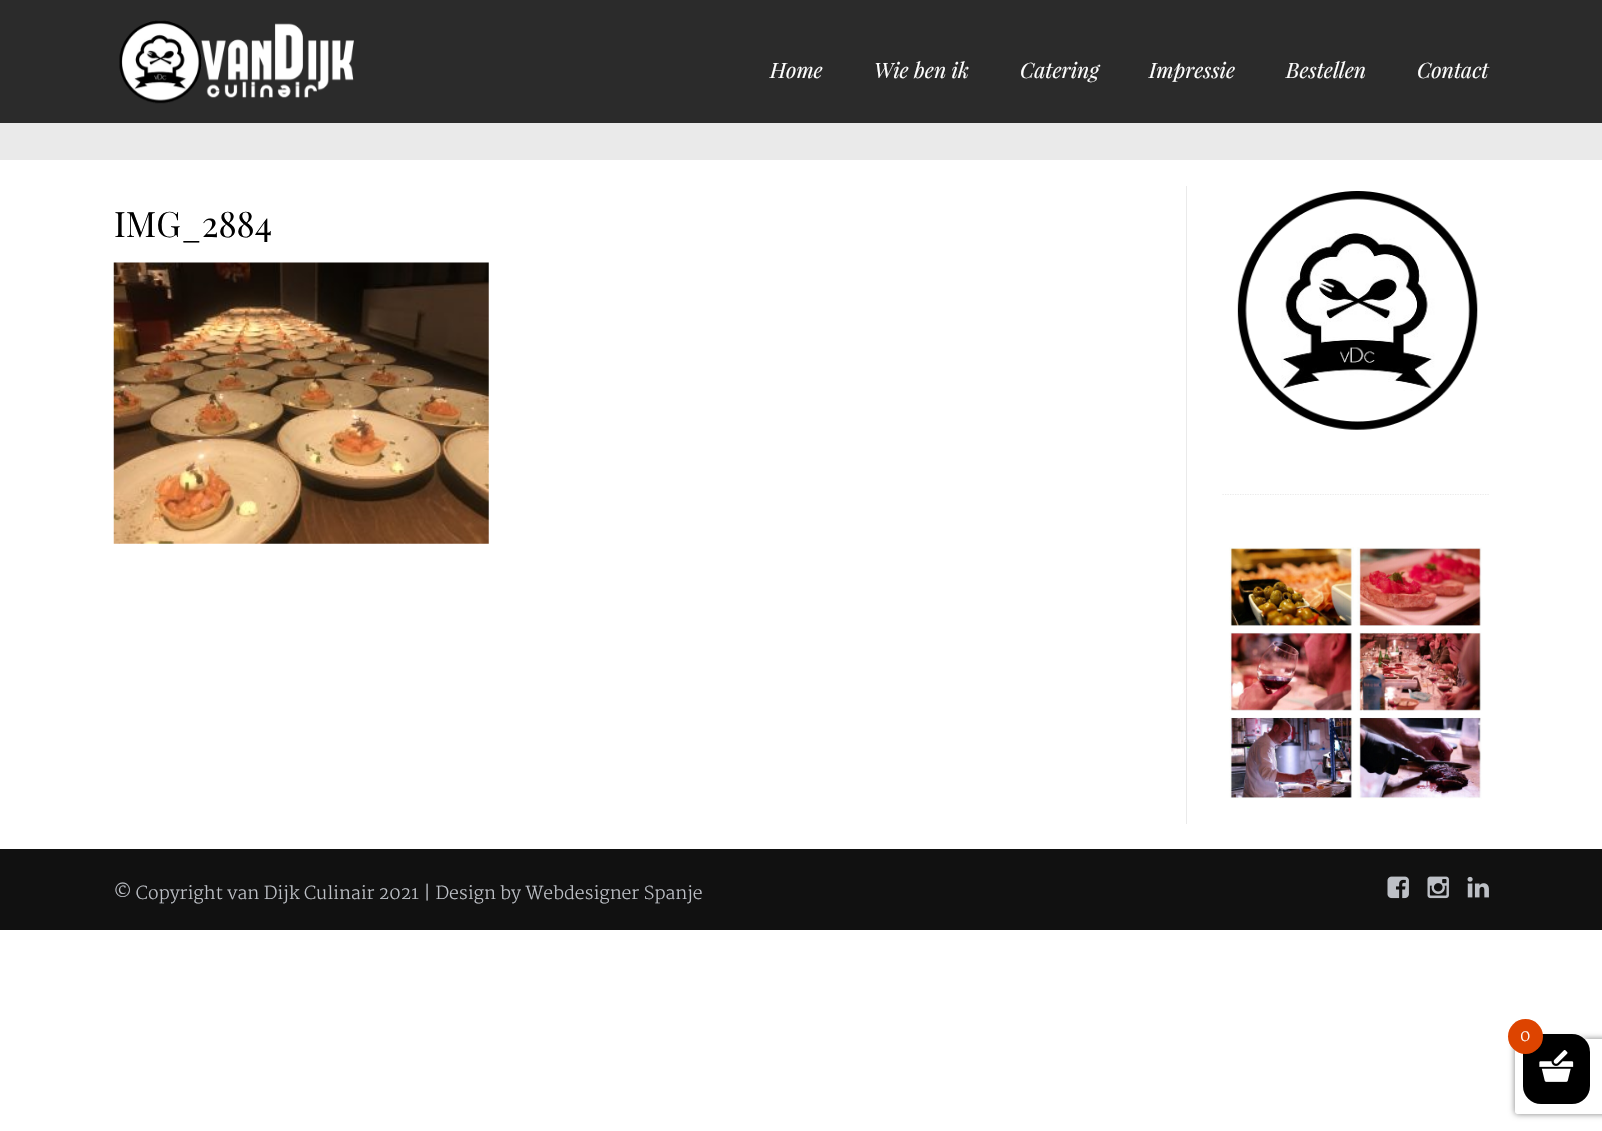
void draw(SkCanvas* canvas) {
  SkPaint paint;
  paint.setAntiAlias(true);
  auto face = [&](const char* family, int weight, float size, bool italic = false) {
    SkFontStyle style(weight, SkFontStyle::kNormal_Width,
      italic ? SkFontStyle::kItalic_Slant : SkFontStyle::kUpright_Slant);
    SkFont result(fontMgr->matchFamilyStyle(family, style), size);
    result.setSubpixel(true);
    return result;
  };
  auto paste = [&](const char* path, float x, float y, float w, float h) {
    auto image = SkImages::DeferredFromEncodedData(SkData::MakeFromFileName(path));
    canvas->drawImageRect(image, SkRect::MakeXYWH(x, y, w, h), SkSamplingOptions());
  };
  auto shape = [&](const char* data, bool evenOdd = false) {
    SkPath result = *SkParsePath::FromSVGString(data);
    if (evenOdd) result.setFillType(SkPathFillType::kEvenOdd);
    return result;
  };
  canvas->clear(0xffffffff);
  paint.setColor(0xff2b2b2b);
  canvas->drawRect(SkRect::MakeXYWH(0, 0, 1602, 123), paint);
  paste("img/1.png", 119, 20, 235, 84);
  paint.setColor(0xffeaeaea);
  canvas->drawRect(SkRect::MakeXYWH(0, 123, 1602, 37), paint);
  paste("img/2.png", 113, 262, 376, 282);
  canvas->drawRect(SkRect::MakeXYWH(1186, 186, 1, 638), paint);
  paste("img/3.png", 1237, 191, 241, 239);
  paint.setStroke(true);
  paint.setStrokeWidth(1.2f);
  paint.setPathEffect(SkDashPathEffect::Make({{1.25f, 1.25f}}, 0));
  canvas->drawPath(shape("M1222.5 494.5H1489"), paint);
  paint.setPathEffect(nullptr);
  paste("img/4.png", 1229, 547, 253, 252);
  paint.setStroke(false);
  paint.setColor(0xff111111);
  canvas->drawRect(SkRect::MakeXYWH(0, 849, 1602, 81), paint);
  paste("img/5.png", 1387, 876, 22, 23);
  paste("img/6.png", 1427, 876, 22, 23);
  paste("img/7.png", 1467, 876, 22, 22);
  canvas->save();
  canvas->clipPath(shape("M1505 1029H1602V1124H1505ZM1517.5 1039H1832.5C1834 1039 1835 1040 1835 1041.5V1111.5C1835 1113 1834 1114 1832.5 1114H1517.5C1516 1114 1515 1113 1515 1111.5V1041.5C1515 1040 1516 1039 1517.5 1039Z", true), true);
  paint.setColor(0xff808080);
  paint.setMaskFilter(SkMaskFilter::MakeBlur(kNormal_SkBlurStyle, 3));
  canvas->drawRoundRect(SkRect::MakeXYWH(1515, 1039, 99, 75), 2.5f, 2.5f, paint);
  paint.setMaskFilter(nullptr);
  canvas->restore();
  paint.setColor(0xffffffff);
  paint.setMaskFilter(SkMaskFilter::MakeBlur(kNormal_SkBlurStyle, 2.5f));
  canvas->drawRoundRect(SkRect::MakeXYWH(1523, 1035, 67, 70), 18, 18, paint);
  paint.setMaskFilter(nullptr);
  paint.setMaskFilter(SkMaskFilter::MakeBlur(kNormal_SkBlurStyle, 2.5f));
  canvas->drawRoundRect(SkRect::MakeXYWH(1523, 1035, 67, 70), 18, 18, paint);
  paint.setMaskFilter(nullptr);
  paint.setColor(0xff000000);
  canvas->drawRoundRect(SkRect::MakeXYWH(1523, 1034, 67, 70), 18, 18, paint);
  paint.setColor(0xffdd4400);
  canvas->drawCircle(1525.5f, 1036.5f, 17.5f, paint);
  paste("img/8.png", 1539, 1050, 35, 32);
  auto f0 = face("Playfair Display", 400, 21.25f, true);
  paint.setColor(0xffffffff);
  {
    const struct { const char* s; float x, y; } items[] = {
      {"Home", 770, 78},
      {"Wie ben ik", 874, 78},
      {"Catering", 1020, 78},
      {"Impressie", 1149, 78},
      {"Bestellen", 1286, 78},
      {"Contact", 1417, 78},
    };
    for (auto [s, x, y] : items) {
      canvas->drawString(s, x, y, f0, paint);
    }
  }
  auto f1 = face("Playfair Display SC", 400, 35);
  paint.setColor(0xff000000);
  canvas->drawString("IMG_2884", 114, 237, f1, paint);
  auto f2 = face("Merriweather", 300, 17.5f);
  paint.setColor(0xffbdc0c6);
  canvas->drawString("© Copyright van Dijk Culinair 2021 | Design by Webdesigner Spanje", 114, 899, f2, paint);
  auto f3 = face("Merriweather", 300, 16);
  paint.setColor(0xffffffff);
  canvas->drawString("0", 1520, 1041, f3, paint);
}
